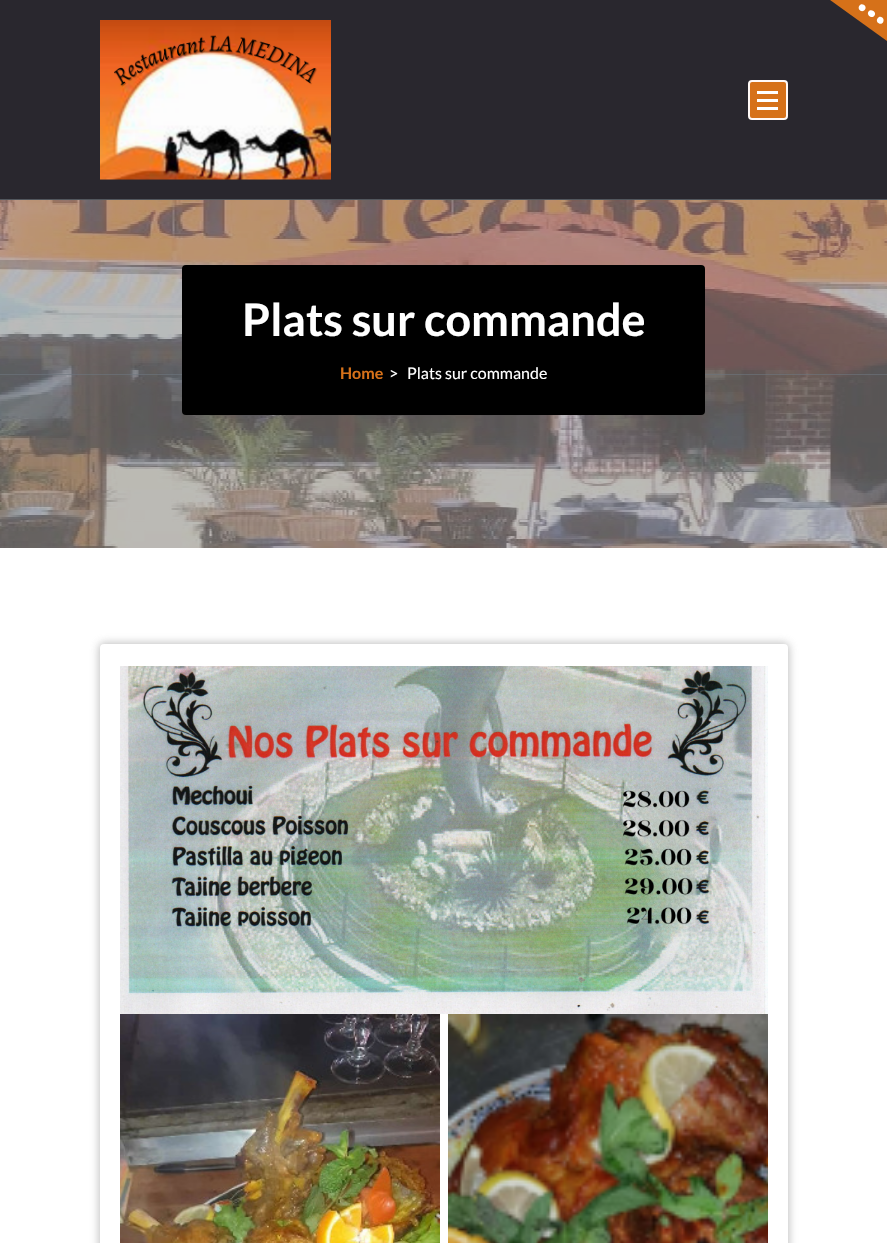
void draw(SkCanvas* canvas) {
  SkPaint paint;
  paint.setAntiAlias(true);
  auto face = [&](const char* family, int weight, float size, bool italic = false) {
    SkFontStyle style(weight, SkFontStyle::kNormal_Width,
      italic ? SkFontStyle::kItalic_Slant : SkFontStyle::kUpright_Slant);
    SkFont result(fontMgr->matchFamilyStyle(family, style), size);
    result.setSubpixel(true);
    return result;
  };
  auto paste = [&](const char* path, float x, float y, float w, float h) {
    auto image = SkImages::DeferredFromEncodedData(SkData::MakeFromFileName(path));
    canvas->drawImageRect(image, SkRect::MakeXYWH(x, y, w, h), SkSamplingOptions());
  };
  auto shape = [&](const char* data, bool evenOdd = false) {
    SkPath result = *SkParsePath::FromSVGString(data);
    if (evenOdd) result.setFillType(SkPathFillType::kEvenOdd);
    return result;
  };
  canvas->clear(0xffffffff);
  paint.setColor(0xff29272e);
  canvas->drawRect(SkRect::MakeXYWH(0, 0, 887, 199), paint);
  paint.setColor(0xff51565d);
  canvas->drawRect(SkRect::MakeXYWH(0, 199, 887, 1), paint);
  paste("img/1.png", 100, 20, 231, 160);
  paint.setColor(0xffd67119);
  canvas->drawRoundRect(SkRect::MakeXYWH(749, 81, 38, 38), 3, 3, paint);
  paint.setStroke(true);
  paint.setStrokeWidth(2);
  paint.setColor(0xfffff9f7);
  canvas->drawRoundRect(SkRect::MakeXYWH(749, 81, 38, 38), 3, 3, paint);
  paint.setStroke(false);
  {
    const struct { float x, y, w, h; SkColor color; } items[] = {
      {757, 91, 21, 3, 0xffffffff},
      {757, 99, 21, 3, 0xffffffff},
      {757, 107, 21, 3, 0xffffffff},
    };
    for (auto [x, y, w, h, color] : items) {
      paint.setColor(color);
      canvas->drawRect(SkRect::MakeXYWH(x, y, w, h), paint);
    }
  }
  paint.setColor(0xffd67119);
  canvas->drawPath(shape("M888-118L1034-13L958 92L812-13Z"), paint);
  canvas->drawPath(shape("M845 10L860-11L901 18L886 39Z"), paint);
  paint.setColor(0xffffffff);
  canvas->drawPath(shape("M868.5 11.5C871 8 877 12 874.5 15.5C872 19.5 866 15 868.5 11.5ZM859.5 5.5C862 2 867.5 6 865 9.5C862.5 13.5 856.5 9.5 859.5 5.5ZM877.5 18.5C880 14.5 885.5 18.5 883 22.5C880.5 26 875 22 877.5 18.5Z"), paint);
  paste("img/2.png", 0, 200, 887, 348);
  paint.setColor(0x996c757d);
  canvas->drawRect(SkRect::MakeXYWH(0, 374, 887, 1), paint);
  paint.setColor(0xff000000);
  canvas->drawRoundRect(SkRect::MakeXYWH(182, 265, 523, 150), 4, 4, paint);
  paint.setColor(0xa1989898);
  paint.setMaskFilter(SkMaskFilter::MakeBlur(kNormal_SkBlurStyle, 4.5f));
  canvas->drawRoundRect(SkRect::MakeXYWH(99, 643, 690, 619), 5, 5, paint);
  paint.setMaskFilter(nullptr);
  paint.setColor(0xffffffff);
  canvas->drawRoundRect(SkRect::MakeXYWH(100, 644, 688, 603), 4, 4, paint);
  paste("img/3.png", 120, 666, 648, 348);
  paste("img/4.png", 120, 1014, 320, 229);
  paste("img/5.png", 448, 1014, 320, 229);
  auto f0 = face("Lato", 700, 45);
  canvas->drawString("Plats sur commande", 242, 336, f0, paint);
  auto f1 = face("Lato", 700, 16);
  paint.setColor(0xffd67119);
  canvas->drawString("Home", 340, 379, f1, paint);
  auto f2 = face("Lato", 400, 16);
  paint.setColor(0xffffffff);
  canvas->drawString(">", 389, 379, f2, paint);
  canvas->drawString("Plats sur commande", 407, 379, f2, paint);
}
